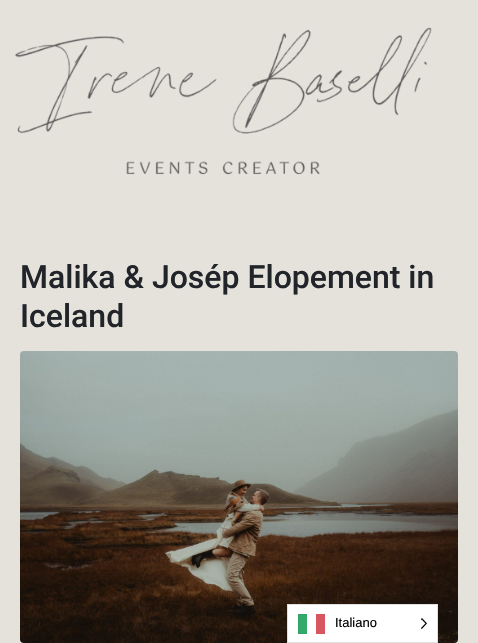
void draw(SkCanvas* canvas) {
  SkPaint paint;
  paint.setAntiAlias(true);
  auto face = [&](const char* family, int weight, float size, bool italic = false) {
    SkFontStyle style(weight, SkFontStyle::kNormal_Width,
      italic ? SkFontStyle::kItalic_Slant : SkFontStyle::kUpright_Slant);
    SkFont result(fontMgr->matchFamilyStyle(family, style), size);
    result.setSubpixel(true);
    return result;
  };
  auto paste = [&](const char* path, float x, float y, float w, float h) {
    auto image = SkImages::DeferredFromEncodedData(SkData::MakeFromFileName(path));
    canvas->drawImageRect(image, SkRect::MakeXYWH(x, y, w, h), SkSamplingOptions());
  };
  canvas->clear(0xffe5e2dc);
  paste("img/1.png", 15, 27, 417, 148);
  paste("img/2.png", 20, 351, 438, 292);
  paint.setColor(0xffffffff);
  canvas->drawRect(SkRect::MakeXYWH(287.5f, 604.5f, 150, 38), paint);
  paint.setStroke(true);
  paint.setStrokeWidth(1);
  paint.setColor(0xffe0e0e0);
  canvas->drawRect(SkRect::MakeXYWH(287.5f, 604.5f, 150, 38), paint);
  paint.setStroke(false);
  {
    const struct { float x, y, w, h; SkColor color; } items[] = {
      {298, 614, 9, 20, 0xff009246},
      {316, 614, 9, 20, 0xffce2b37},
      {298, 614, 27, 20, 0x33ffffff},
    };
    for (auto [x, y, w, h, color] : items) {
      paint.setColor(color);
      canvas->drawRect(SkRect::MakeXYWH(x, y, w, h), paint);
    }
  }
  paste("img/3.png", 421, 618, 6, 11);
  auto f0 = face("Roboto", 500, 32);
  paint.setColor(0xff212529);
  canvas->drawString("Malika & Josép Elopement in", 20, 288, f0, paint);
  canvas->drawString("Iceland", 20, 327, f0, paint);
  auto f1 = face("Liberation Sans", 400, 13);
  paint.setColor(0xff000000);
  canvas->drawString("Italiano", 335, 627, f1, paint);
}
